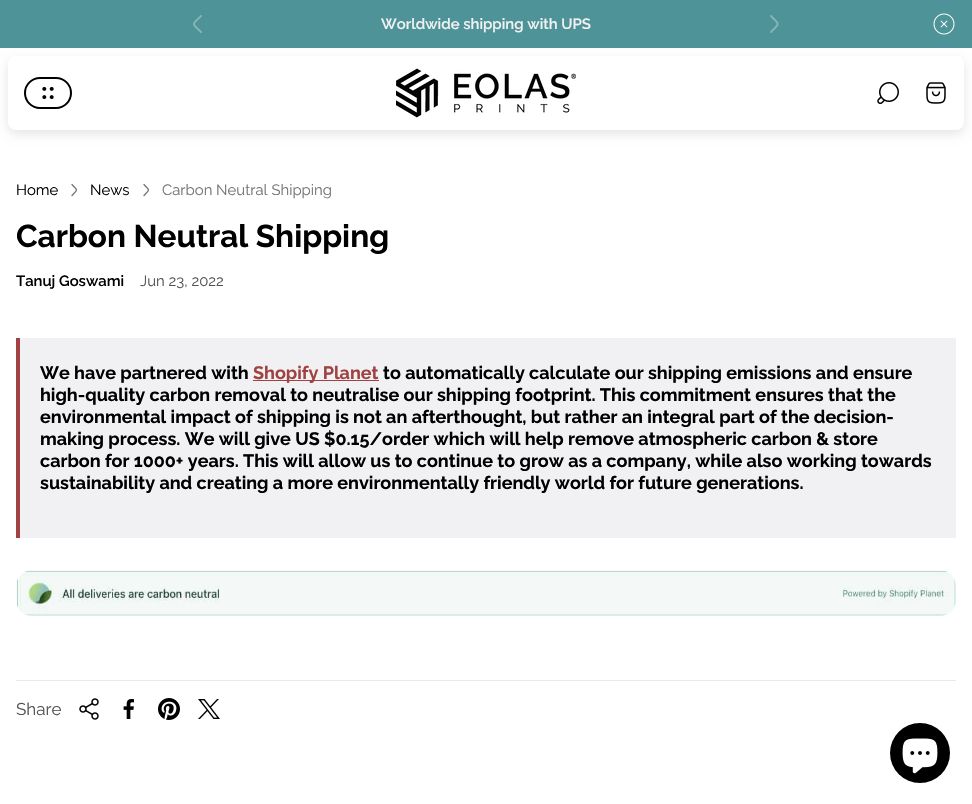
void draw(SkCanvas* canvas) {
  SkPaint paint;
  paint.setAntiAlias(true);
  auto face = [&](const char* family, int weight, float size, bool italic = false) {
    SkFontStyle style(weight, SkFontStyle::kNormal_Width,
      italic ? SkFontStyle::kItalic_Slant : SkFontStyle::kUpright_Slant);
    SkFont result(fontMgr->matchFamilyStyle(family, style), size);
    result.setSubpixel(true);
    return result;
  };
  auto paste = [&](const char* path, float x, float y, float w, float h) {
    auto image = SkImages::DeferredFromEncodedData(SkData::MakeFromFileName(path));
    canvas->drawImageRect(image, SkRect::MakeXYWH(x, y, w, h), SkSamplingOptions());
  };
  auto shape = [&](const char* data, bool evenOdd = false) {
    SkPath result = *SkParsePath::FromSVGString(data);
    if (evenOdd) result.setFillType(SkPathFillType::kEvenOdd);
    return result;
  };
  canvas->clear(0xffffffff);
  paint.setColor(0xff4d9398);
  canvas->drawRect(SkRect::MakeXYWH(0, 0, 972, 48), paint);
  paint.setStroke(true);
  paint.setStrokeWidth(2);
  paint.setStrokeCap(SkPaint::kRound_Cap);
  paint.setStrokeJoin(SkPaint::kRound_Join);
  paint.setColor(0xff82b3b7);
  canvas->drawPath(shape("M201 32C191.5 22.5 191.5 25.5 201 16"), paint);
  canvas->drawPath(shape("M771 32C780 22.5 780 25.5 771 16"), paint);
  paste("img/1.png", 933, 13, 22, 22);
  paint.setStroke(false);
  paint.setColor(0x1a000000);
  paint.setMaskFilter(SkMaskFilter::MakeBlur(kNormal_SkBlurStyle, 5.5f));
  canvas->drawRoundRect(SkRect::MakeXYWH(8, 60, 956, 74), 8, 8, paint);
  paint.setMaskFilter(nullptr);
  paint.setColor(0xffffffff);
  canvas->drawRoundRect(SkRect::MakeXYWH(8, 56, 956, 74), 8, 8, paint);
  paint.setStroke(true);
  paint.setStrokeCap(SkPaint::kButt_Cap);
  paint.setStrokeJoin(SkPaint::kMiter_Join);
  paint.setColor(0xff000000);
  canvas->drawRoundRect(SkRect::MakeXYWH(25, 78, 46, 30), 15, 15, paint);
  paste("img/2.png", 42, 86, 12, 14);
  paste("img/3.png", 396, 68, 180, 50);
  paste("img/4.png", 877, 82, 22, 23);
  paste("img/5.png", 926, 82, 20, 22);
  paint.setStrokeWidth(1.3f);
  paint.setStrokeCap(SkPaint::kRound_Cap);
  paint.setStrokeJoin(SkPaint::kRound_Join);
  paint.setColor(0xff757575);
  canvas->drawPath(shape("M72 195.5C78 189 78 191 72 184.5"), paint);
  canvas->drawPath(shape("M144 195.5C150 189 150 191 144 184.5"), paint);
  paint.setStroke(false);
  {
    const struct { float x, y, w, h; SkColor color; } items[] = {
      {16, 680, 940, 1, 0xffe9e9e9},
      {20, 338, 936, 200, 0xfff1f1f3},
      {16, 338, 4, 200, 0xffa14242},
      {253, 380, 126, 1, 0xffa14242},
    };
    for (auto [x, y, w, h, color] : items) {
      paint.setColor(color);
      canvas->drawRect(SkRect::MakeXYWH(x, y, w, h), paint);
    }
  }
  paste("img/6.png", 16, 570, 940, 46);
  paste("img/7.png", 79, 698, 20, 22);
  paste("img/8.png", 123, 699, 11, 20);
  paste("img/9.png", 158, 698, 22, 22);
  paste("img/10.png", 198, 699, 22, 20);
  paint.setColor(0xff000000);
  canvas->drawCircle(920, 753, 30, paint);
  paste("img/11.png", 902, 738, 36, 36);
  auto f0 = face("Raleway", 600, 14.9f);
  paint.setColor(0xfff1f1f3);
  canvas->drawString("Worldwide shipping with UPS", 381, 29, f0, paint);
  auto f1 = face("Raleway", 400, 14.9f);
  paint.setColor(0xff000000);
  canvas->drawString("Home", 16, 195, f1, paint);
  canvas->drawString("News", 90, 195, f1, paint);
  paint.setColor(0xff757575);
  canvas->drawString("Carbon Neutral Shipping", 162, 195, f1, paint);
  auto f2 = face("Raleway", 700, 31.5f);
  paint.setColor(0xff000000);
  canvas->drawString("Carbon Neutral Shipping", 16, 247, f2, paint);
  canvas->drawString("Tanuj Goswami", 16, 286, f0, paint);
  paint.setColor(0xff535353);
  canvas->drawString("Jun 23, 2022", 140, 286, f1, paint);
  auto f3 = face("Raleway", 700, 18);
  paint.setColor(0xff000000);
  canvas->drawString("We have partnered with", 40, 379, f3, paint);
  paint.setColor(0xffa14242);
  canvas->drawString("Shopify Planet", 253, 379, f3, paint);
  paint.setColor(0xff000000);
  {
    const struct { const char* s; float x, y; } items[] = {
      {"to automatically calculate our shipping emissions and ensure", 383, 379},
      {"high-quality carbon removal to neutralise our shipping footprint. This commitment ensures that the", 40, 401},
      {"environmental impact of shipping is not an afterthought, but rather an integral part of the decision-", 40, 423},
      {"making process. We will give US $0.15/order which will help remove atmospheric carbon & store", 40, 445},
      {"carbon for 1000+ years. This will allow us to continue to grow as a company, while also working towards", 40, 467},
      {"sustainability and creating a more environmentally friendly world for future generations.", 40, 489},
    };
    for (auto [s, x, y] : items) {
      canvas->drawString(s, x, y, f3, paint);
    }
  }
  auto f4 = face("Raleway", 400, 17);
  paint.setColor(0xff535353);
  canvas->drawString("Share", 16, 715, f4, paint);
}
